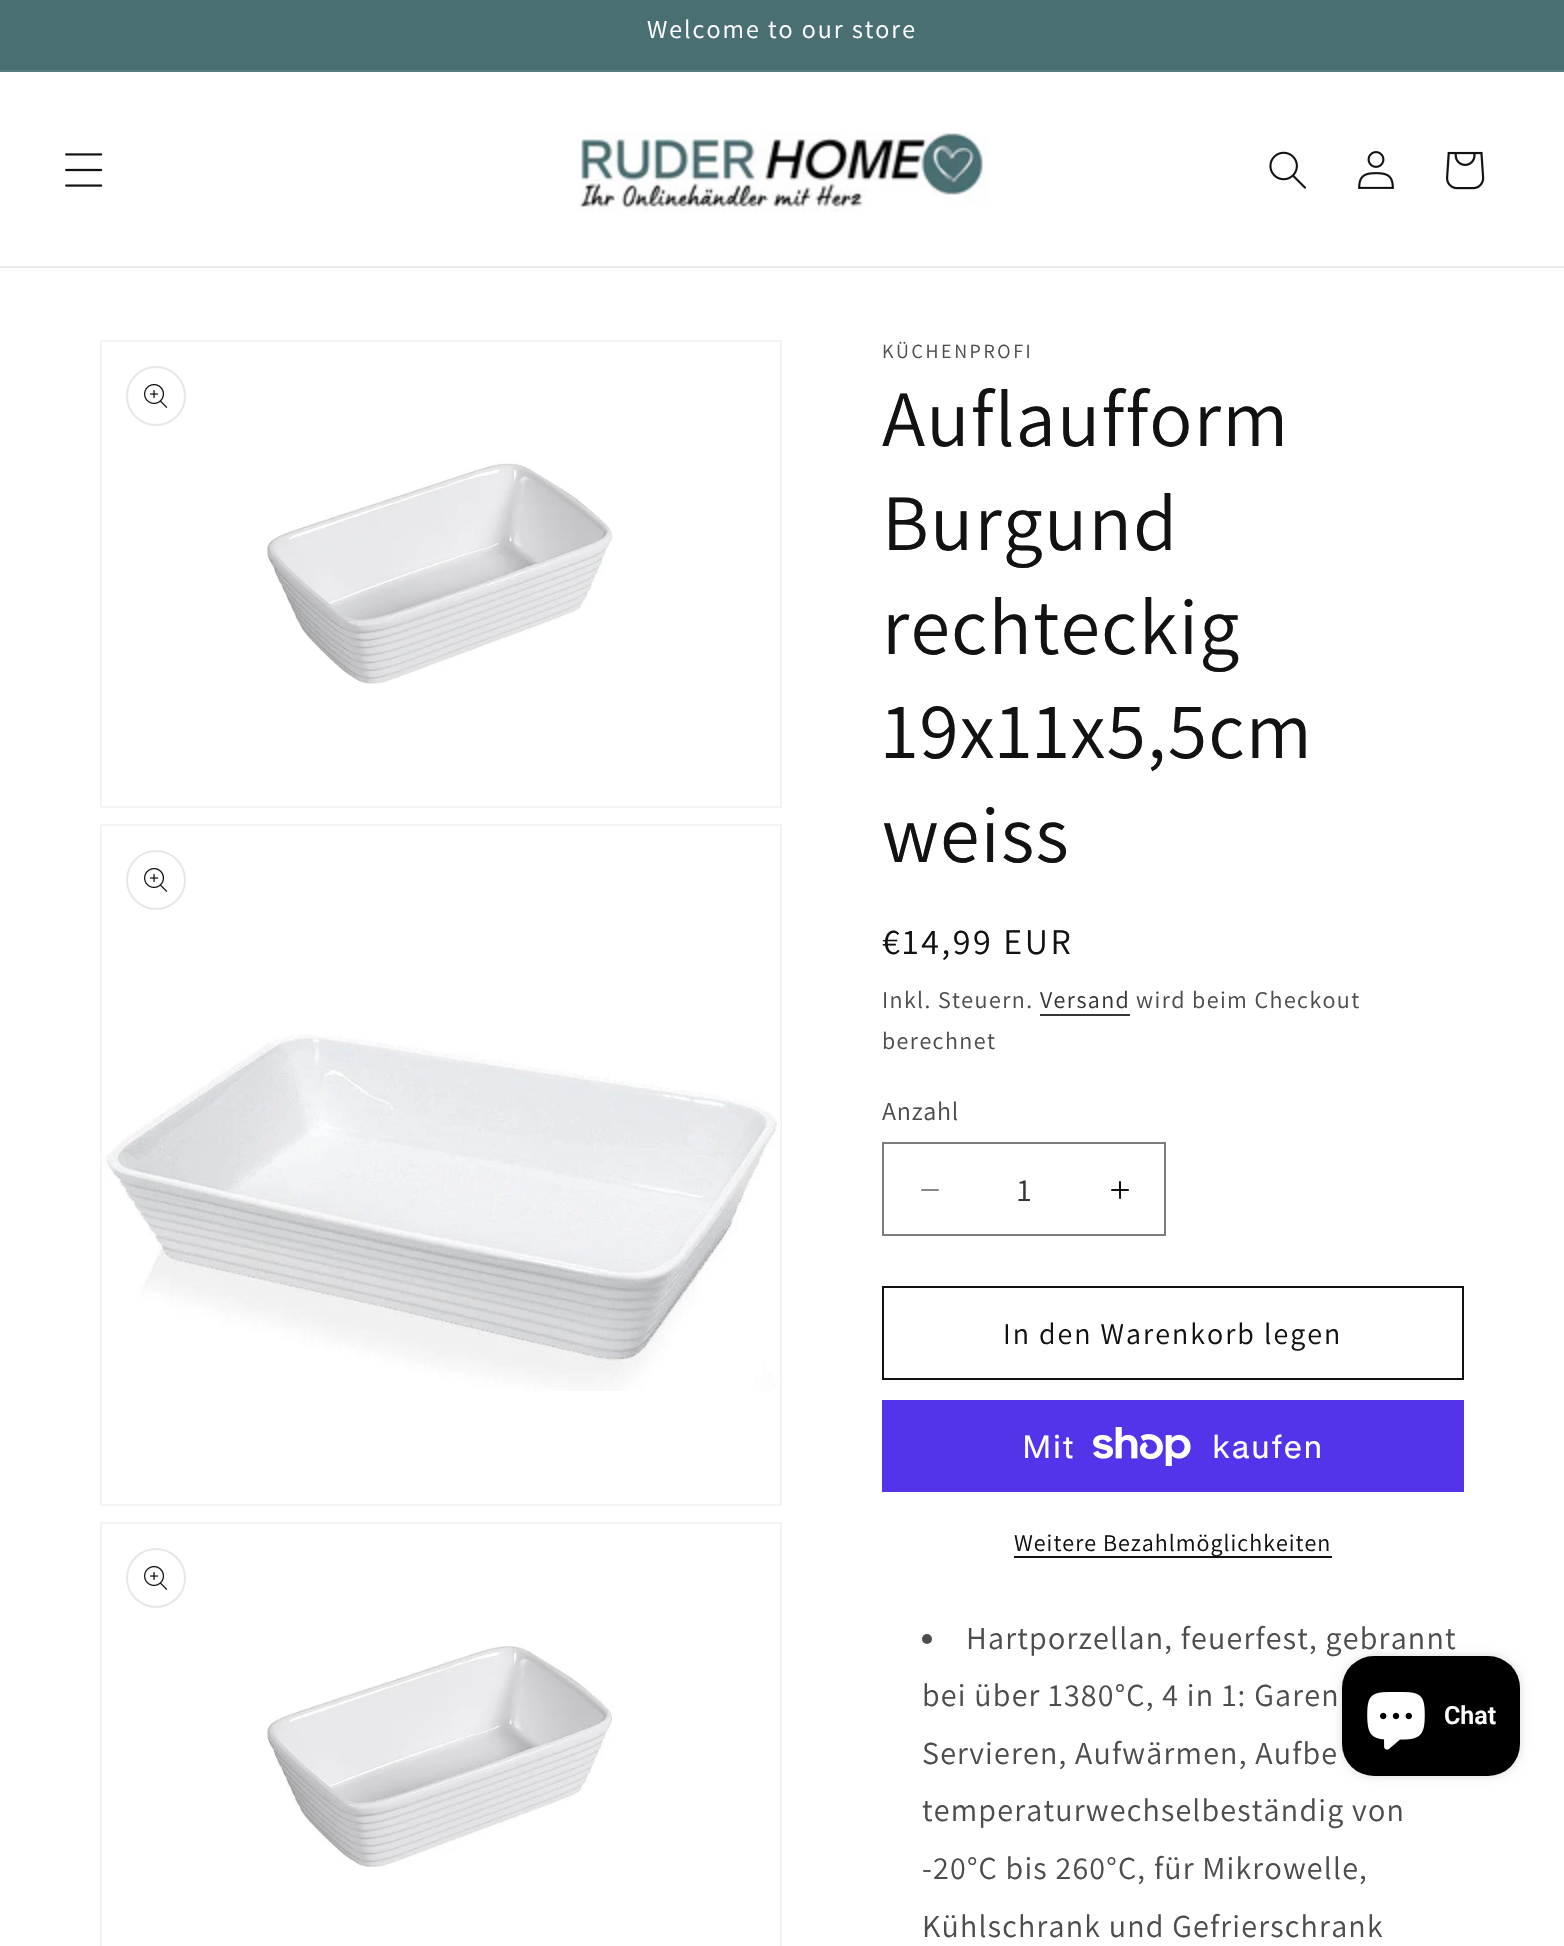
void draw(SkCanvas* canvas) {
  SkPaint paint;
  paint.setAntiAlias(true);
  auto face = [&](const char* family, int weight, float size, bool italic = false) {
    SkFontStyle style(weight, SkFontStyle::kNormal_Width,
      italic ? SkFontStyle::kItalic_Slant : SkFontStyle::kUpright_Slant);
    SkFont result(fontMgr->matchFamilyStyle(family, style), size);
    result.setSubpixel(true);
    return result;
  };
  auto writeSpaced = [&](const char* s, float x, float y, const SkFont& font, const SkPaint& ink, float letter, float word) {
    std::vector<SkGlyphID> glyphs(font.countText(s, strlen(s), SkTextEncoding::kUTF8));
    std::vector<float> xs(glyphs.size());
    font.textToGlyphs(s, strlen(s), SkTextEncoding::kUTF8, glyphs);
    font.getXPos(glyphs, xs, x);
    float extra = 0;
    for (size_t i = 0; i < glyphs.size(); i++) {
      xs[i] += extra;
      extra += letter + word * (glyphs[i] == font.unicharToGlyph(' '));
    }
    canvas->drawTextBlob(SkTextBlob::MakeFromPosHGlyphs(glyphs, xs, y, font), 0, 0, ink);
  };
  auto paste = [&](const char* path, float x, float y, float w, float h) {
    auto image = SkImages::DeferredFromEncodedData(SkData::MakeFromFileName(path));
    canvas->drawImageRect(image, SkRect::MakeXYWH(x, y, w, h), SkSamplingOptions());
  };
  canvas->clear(0xffffffff);
  {
    const struct { float x, y, w, h; SkColor color; } items[] = {
      {0, 0, 1564, 70, 0xff4a6f73},
      {0, 70, 1564, 2, 0xff587b7e},
      {0, 266, 1564, 2, 0xffececec},
    };
    for (auto [x, y, w, h, color] : items) {
      paint.setColor(color);
      canvas->drawRect(SkRect::MakeXYWH(x, y, w, h), paint);
    }
  }
  paste("img/1.png", 65, 153, 38, 34);
  paste("img/2.png", 579, 132, 409, 80);
  paste("img/3.png", 1269, 151, 37, 38);
  paste("img/4.png", 1358, 151, 36, 38);
  paste("img/5.png", 1446, 151, 39, 39);
  paint.setStroke(true);
  paint.setStrokeWidth(2);
  paint.setColor(0xfff3f3f3);
  canvas->drawRect(SkRect::MakeXYWH(101, 341, 680, 466), paint);
  paint.setColor(0xffe7e7e7);
  canvas->drawCircle(156, 396, 29, paint);
  paste("img/6.png", 144, 384, 24, 24);
  paste("img/7.png", 267, 463, 346, 221);
  paint.setColor(0xfff3f3f3);
  canvas->drawRect(SkRect::MakeXYWH(101, 825, 680, 680), paint);
  paint.setColor(0xffe7e7e7);
  canvas->drawCircle(156, 880, 29, paint);
  paste("img/6.png", 144, 868, 24, 24);
  paste("img/8.png", 102, 1034, 677, 357);
  paint.setColor(0xfff3f3f3);
  canvas->drawRect(SkRect::MakeXYWH(101, 1523, 680, 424), paint);
  paint.setColor(0xffe7e7e7);
  canvas->drawCircle(156, 1578, 29, paint);
  paste("img/6.png", 144, 1566, 24, 24);
  paste("img/9.png", 267, 1646, 346, 221);
  paint.setStroke(false);
  paint.setColor(0xff363636);
  canvas->drawRect(SkRect::MakeXYWH(1040, 1014, 90, 2), paint);
  paste("img/10.png", 921, 1189, 18, 2);
  paste("img/11.png", 1111, 1181, 18, 18);
  paint.setStroke(true);
  paint.setColor(0xff7d7d7d);
  canvas->drawRect(SkRect::MakeXYWH(883, 1143, 282, 92), paint);
  paint.setColor(0xff121212);
  canvas->drawRect(SkRect::MakeXYWH(883, 1287, 580, 92), paint);
  paint.setStroke(false);
  paint.setColor(0xff5433eb);
  canvas->drawRect(SkRect::MakeXYWH(882, 1400, 582, 92), paint);
  paste("img/12.png", 1093, 1427, 98, 39);
  paint.setColor(0xff121212);
  canvas->drawRect(SkRect::MakeXYWH(1014, 1556, 318, 2), paint);
  paint.setColor(0xff4d4d4d);
  canvas->drawCircle(927, 1639, 5, paint);
  paint.setColor(0x26000000);
  paint.setMaskFilter(SkMaskFilter::MakeBlur(kNormal_SkBlurStyle, 5));
  canvas->drawRoundRect(SkRect::MakeXYWH(1342, 1656, 178, 120), 32, 32, paint);
  paint.setMaskFilter(nullptr);
  auto f0 = face("Assistant", 400, 26);
  paint.setColor(0xffffffff);
  writeSpaced("Welcome to our store", 647, 38, f0, paint, 2, 0);
  auto f1 = face("Assistant", 400, 20);
  paint.setColor(0xff4d4d4d);
  writeSpaced("KÜCHENPROFI", 882, 358, f1, paint, 2.6f, 0);
  auto f2 = face("Assistant", 400, 80);
  paint.setColor(0xff121212);
  {
    const struct { const char* s; float x, y; } items[] = {
      {"Auflaufform", 882, 446},
      {"Burgund", 882, 550},
      {"rechteckig", 882, 654},
      {"19x11x5,5cm", 882, 758},
      {"weiss", 882, 862},
    };
    for (auto [s, x, y] : items) {
      writeSpaced(s, x, y, f2, paint, 1.2f, 0);
    }
  }
  auto f3 = face("Assistant", 400, 36);
  writeSpaced("€14,99 EUR", 882, 954, f3, paint, 2.6f, 0);
  auto f4 = face("Assistant", 400, 24);
  paint.setColor(0xff4d4d4d);
  writeSpaced("Inkl. Steuern.", 882, 1008, f4, paint, 1.4f, 0);
  paint.setColor(0xff363636);
  writeSpaced("Versand", 1040, 1008, f4, paint, 1.4f, 0);
  paint.setColor(0xff4d4d4d);
  writeSpaced("wird beim Checkout", 1136, 1008, f4, paint, 1.4f, 0);
  writeSpaced("berechnet", 882, 1049, f4, paint, 1.4f, 0);
  writeSpaced("Anzahl", 882, 1120, f0, paint, 0.75f, 0);
  auto f5 = face("Assistant", 400, 32);
  paint.setColor(0xff363636);
  canvas->drawString("1", 1017, 1201, f5, paint);
  auto f6 = face("Assistant", 400, 30);
  paint.setColor(0xff121212);
  writeSpaced("In den Warenkorb legen", 1003, 1344, f6, paint, 2, 0);
  auto f7 = face("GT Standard", 400, 32);
  paint.setColor(0xffffffff);
  writeSpaced("Mit", 1022, 1458, f7, paint, 1.2f, 0);
  writeSpaced("kaufen", 1212, 1458, f7, paint, 1.2f, 0);
  paint.setColor(0xff121212);
  writeSpaced("Weitere Bezahlmöglichkeiten", 1014, 1551, f4, paint, 1, 0);
  paint.setColor(0xff4d4d4d);
  {
    const struct { const char* s; float x, y; } items[] = {
      {"Hartporzellan, feuerfest, gebrannt", 966, 1649},
      {"bei über 1380°C, 4 in 1: Garen", 922, 1706},
      {"Servieren, Aufwärmen, Aufbe", 922, 1764},
      {"temperaturwechselbeständig von", 922, 1821},
      {"-20°C bis 260°C, für Mikrowelle,", 922, 1879},
      {"Kühlschrank und Gefrierschrank", 922, 1937},
    };
    for (auto [s, x, y] : items) {
      writeSpaced(s, x, y, f5, paint, 1.2f, 0);
    }
  }
  paint.setColor(0xff000000);
  canvas->drawRoundRect(SkRect::MakeXYWH(1342, 1656, 178, 120), 32, 32, paint);
  paste("img/13.png", 1367, 1692, 58, 58);
  auto f8 = face("Roboto", 600, 25);
  paint.setColor(0xffffffff);
  canvas->drawString("Chat", 1444, 1724, f8, paint);
}
